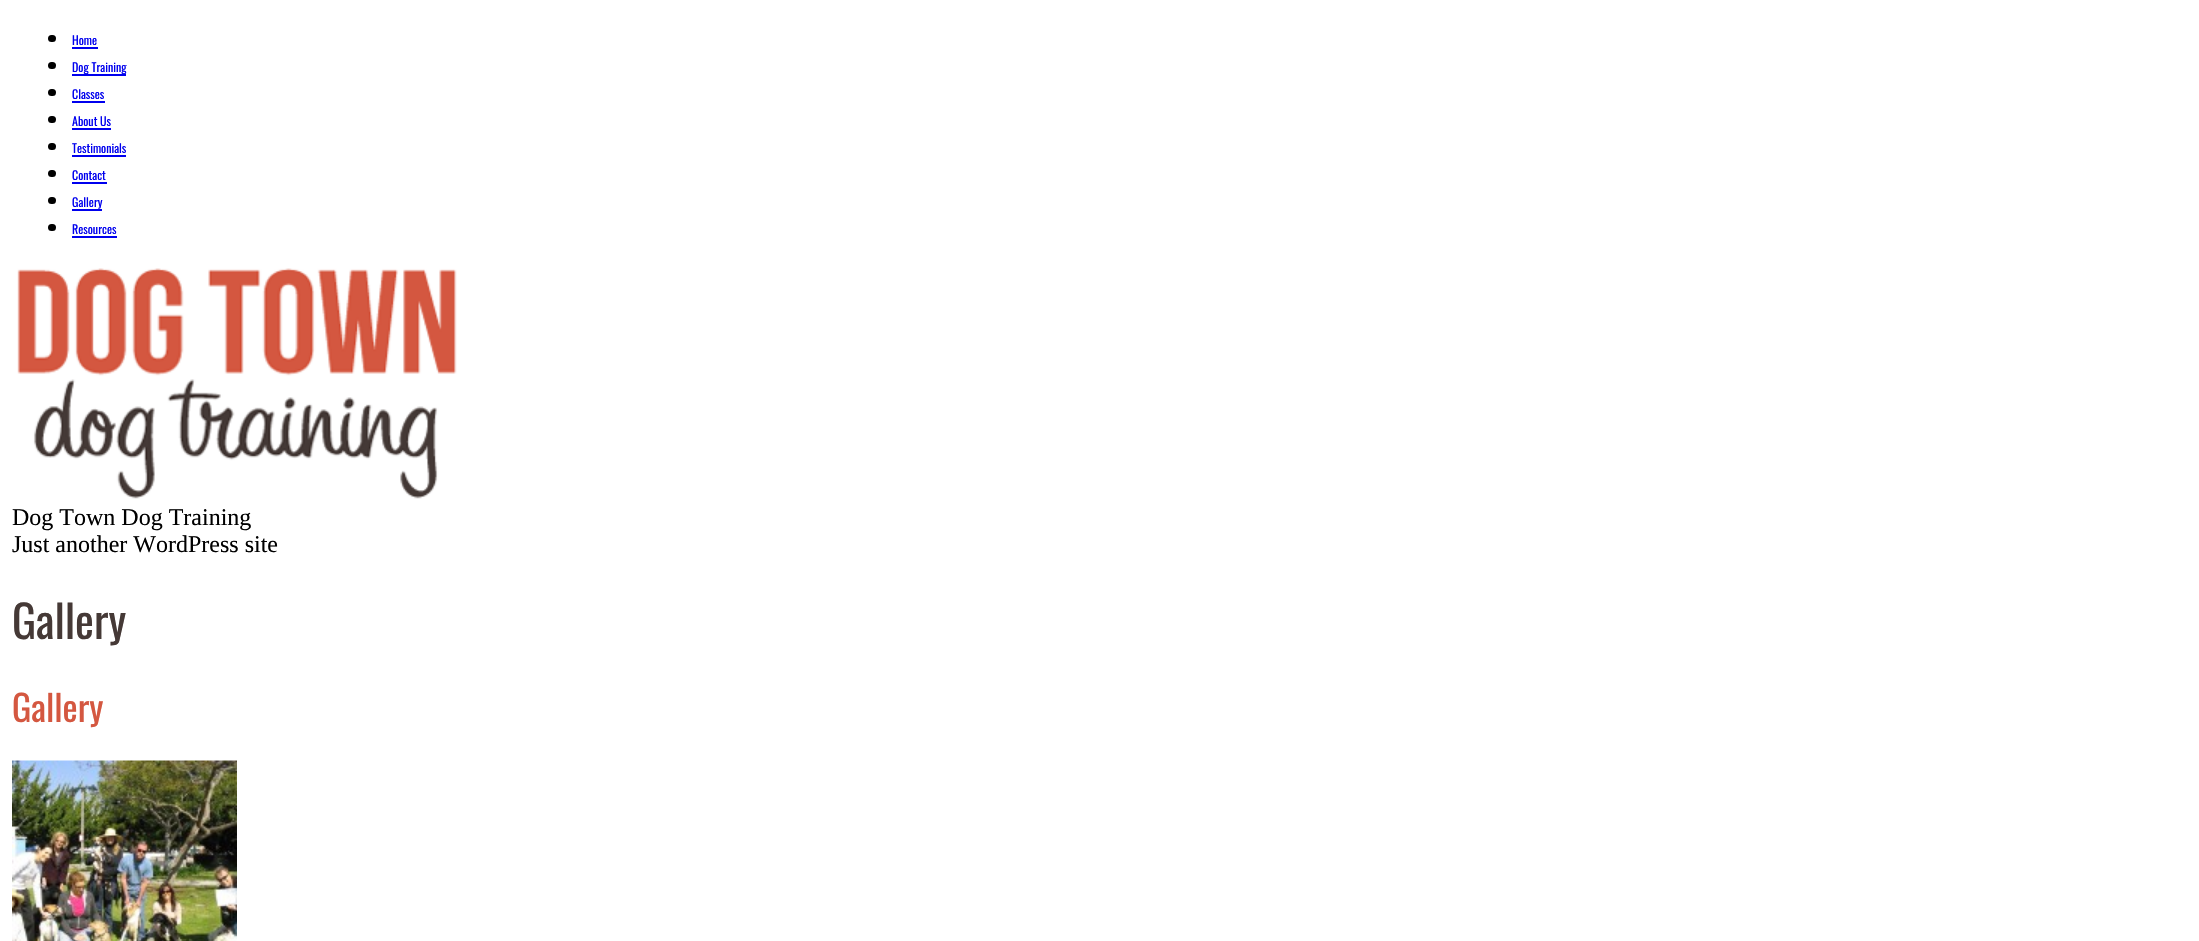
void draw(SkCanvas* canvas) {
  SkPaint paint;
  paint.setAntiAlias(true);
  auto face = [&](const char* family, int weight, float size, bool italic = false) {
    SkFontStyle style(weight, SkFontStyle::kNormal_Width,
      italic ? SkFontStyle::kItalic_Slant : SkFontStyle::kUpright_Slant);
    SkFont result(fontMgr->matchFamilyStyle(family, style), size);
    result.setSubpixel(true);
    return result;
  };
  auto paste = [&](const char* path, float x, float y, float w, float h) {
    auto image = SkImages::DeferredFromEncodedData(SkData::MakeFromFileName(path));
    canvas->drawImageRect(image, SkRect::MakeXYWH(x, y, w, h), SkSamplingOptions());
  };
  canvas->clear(0xffffffff);
  paint.setColor(0xff000000);
  canvas->drawRoundRect(SkRect::MakeXYWH(48, 35, 8, 7), 3.5f, 3.5f, paint);
  paint.setColor(0xff0000ee);
  canvas->drawRect(SkRect::MakeXYWH(72, 47, 26, 2), paint);
  paint.setColor(0xff000000);
  canvas->drawRoundRect(SkRect::MakeXYWH(48, 62, 8, 7), 3.5f, 3.5f, paint);
  paint.setColor(0xff0000ee);
  canvas->drawRect(SkRect::MakeXYWH(72, 74, 54, 2), paint);
  paint.setColor(0xff000000);
  canvas->drawRoundRect(SkRect::MakeXYWH(48, 89, 8, 7), 3.5f, 3.5f, paint);
  paint.setColor(0xff0000ee);
  canvas->drawRect(SkRect::MakeXYWH(72, 101, 33, 2), paint);
  paint.setColor(0xff000000);
  canvas->drawRoundRect(SkRect::MakeXYWH(48, 116, 8, 7), 3.5f, 3.5f, paint);
  paint.setColor(0xff0000ee);
  canvas->drawRect(SkRect::MakeXYWH(72, 128, 39, 2), paint);
  paint.setColor(0xff000000);
  canvas->drawRoundRect(SkRect::MakeXYWH(48, 143, 8, 7), 3.5f, 3.5f, paint);
  paint.setColor(0xff0000ee);
  canvas->drawRect(SkRect::MakeXYWH(72, 155, 54, 2), paint);
  paint.setColor(0xff000000);
  canvas->drawRoundRect(SkRect::MakeXYWH(48, 170, 8, 7), 3.5f, 3.5f, paint);
  paint.setColor(0xff0000ee);
  canvas->drawRect(SkRect::MakeXYWH(72, 182, 35, 2), paint);
  paint.setColor(0xff000000);
  canvas->drawRoundRect(SkRect::MakeXYWH(48, 197, 8, 7), 3.5f, 3.5f, paint);
  paint.setColor(0xff0000ee);
  canvas->drawRect(SkRect::MakeXYWH(72, 209, 30, 2), paint);
  paint.setColor(0xff000000);
  canvas->drawRoundRect(SkRect::MakeXYWH(48, 224, 8, 7), 3.5f, 3.5f, paint);
  paint.setColor(0xff0000ee);
  canvas->drawRect(SkRect::MakeXYWH(72, 236, 45, 2), paint);
  paste("img/1.png", 17, 268, 440, 231);
  paste("img/2.png", 12, 760, 225, 181);
  auto f0 = face("Oswald", 400, 12);
  {
    const struct { const char* s; float x, y; } items[] = {
      {"Home", 72, 45},
      {"Dog Training", 72, 72},
      {"Classes", 72, 99},
      {"About Us", 72, 126},
      {"Testimonials", 72, 153},
      {"Contact", 72, 180},
      {"Gallery", 72, 207},
      {"Resources", 72, 234},
    };
    for (auto [s, x, y] : items) {
      canvas->drawString(s, x, y, f0, paint);
    }
  }
  auto f1 = face("Liberation Serif", 400, 24);
  paint.setColor(0xff000000);
  canvas->drawString("Dog Town Dog Training", 12, 525, f1, paint);
  canvas->drawString("Just another WordPress site", 12, 552, f1, paint);
  auto f2 = face("Oswald", 400, 45);
  paint.setColor(0xff453936);
  canvas->drawString("Gallery", 12, 639, f2, paint);
  auto f3 = face("Oswald", 400, 36);
  paint.setColor(0xffd45740);
  canvas->drawString("Gallery", 12, 722, f3, paint);
}
